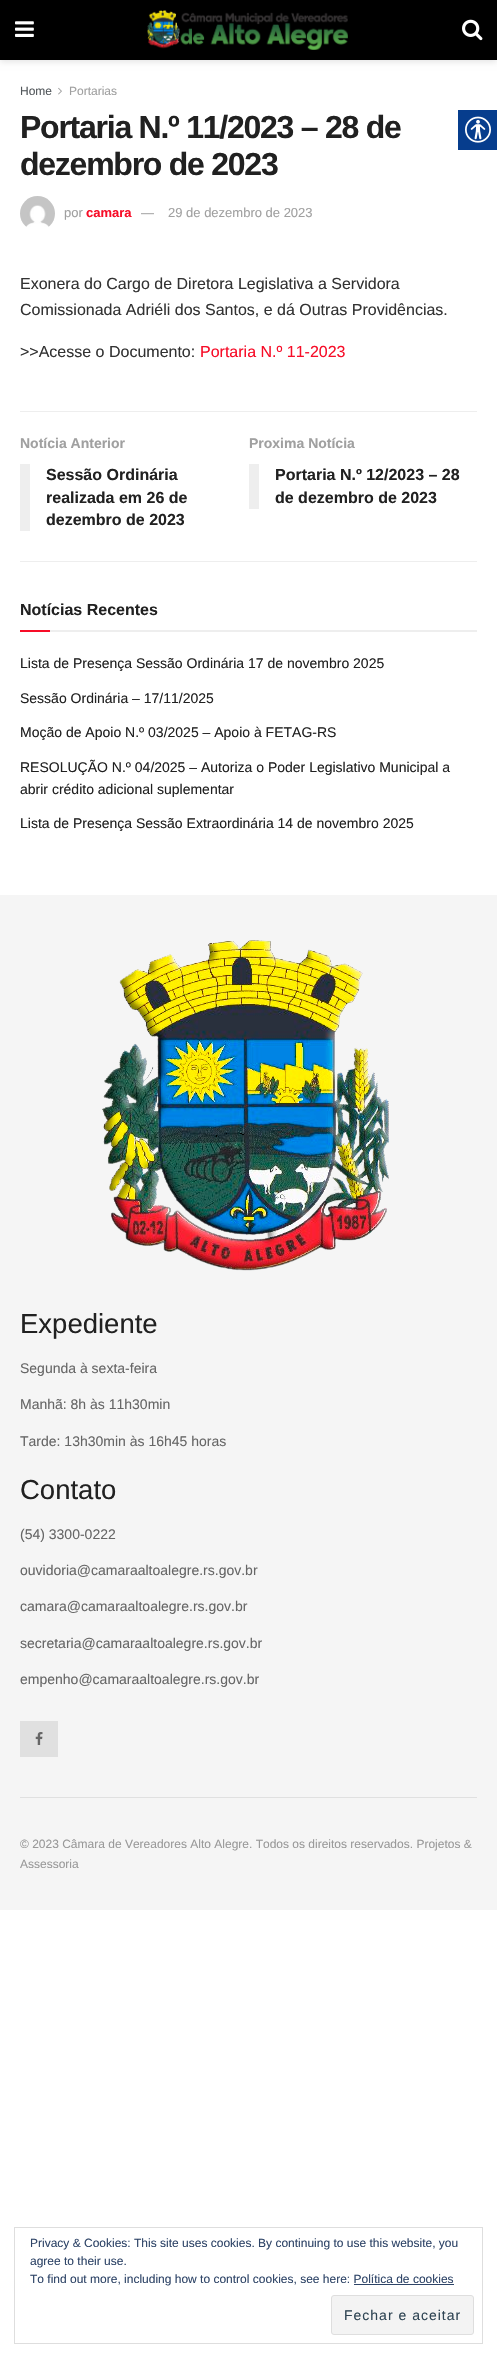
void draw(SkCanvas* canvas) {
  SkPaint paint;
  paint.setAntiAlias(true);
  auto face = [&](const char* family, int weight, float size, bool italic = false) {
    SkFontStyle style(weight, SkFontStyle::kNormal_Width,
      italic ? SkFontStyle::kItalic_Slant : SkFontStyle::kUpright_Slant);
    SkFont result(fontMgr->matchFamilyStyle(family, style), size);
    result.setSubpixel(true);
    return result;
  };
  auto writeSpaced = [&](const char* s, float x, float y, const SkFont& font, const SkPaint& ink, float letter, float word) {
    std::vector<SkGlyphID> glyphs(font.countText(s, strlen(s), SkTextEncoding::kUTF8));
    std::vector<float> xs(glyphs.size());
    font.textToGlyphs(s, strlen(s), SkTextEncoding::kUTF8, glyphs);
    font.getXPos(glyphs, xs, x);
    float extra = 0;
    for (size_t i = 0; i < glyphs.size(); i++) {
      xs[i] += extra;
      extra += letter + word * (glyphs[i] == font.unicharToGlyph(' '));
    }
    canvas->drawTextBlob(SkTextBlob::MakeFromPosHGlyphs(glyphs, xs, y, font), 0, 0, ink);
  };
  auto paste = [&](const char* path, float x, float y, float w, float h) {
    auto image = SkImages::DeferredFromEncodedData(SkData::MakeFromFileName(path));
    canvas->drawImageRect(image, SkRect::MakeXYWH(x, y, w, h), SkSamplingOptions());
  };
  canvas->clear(0xffffffff);
  paint.setColor(0x1a000000);
  paint.setMaskFilter(SkMaskFilter::MakeBlur(kNormal_SkBlurStyle, 3));
  canvas->drawRect(SkRect::MakeXYWH(0, 2, 497, 60), paint);
  paint.setMaskFilter(nullptr);
  paint.setColor(0xff000000);
  canvas->drawRect(SkRect::MakeXYWH(0, 0, 497, 60), paint);
  paste("img/1.png", 15, 21, 19, 16);
  paste("img/2.png", 147, 10, 201, 40);
  paste("img/3.png", 462, 19, 21, 22);
  paste("img/4.png", 58, 87, 4, 8);
  paste("img/5.png", 20, 196, 35, 31);
  {
    const struct { float x, y, w, h; SkColor color; } items[] = {
      {20, 411, 457, 1, 0xffeeeeee},
      {20, 561, 457, 1, 0xffeeeeee},
      {20, 464, 10, 67, 0xffeeeeee},
      {249, 464, 10, 45, 0xffeeeeee},
      {50, 630, 427, 2, 0xffeeeeee},
      {20, 630, 30, 2, 0xfff70d28},
      {0, 895, 497, 1015, 0xfff5f5f5},
    };
    for (auto [x, y, w, h, color] : items) {
      paint.setColor(color);
      canvas->drawRect(SkRect::MakeXYWH(x, y, w, h), paint);
    }
  }
  paste("img/6.png", 102, 940, 288, 331);
  paint.setColor(0xffe0e0e0);
  canvas->drawRect(SkRect::MakeXYWH(20, 1721, 38, 36), paint);
  paste("img/7.png", 35, 1732, 8, 13);
  canvas->drawRect(SkRect::MakeXYWH(20, 1797, 457, 1), paint);
  paint.setColor(0xff063d8d);
  canvas->drawRect(SkRect::MakeXYWH(458, 110, 39, 40), paint);
  paste("img/8.png", 465, 116, 26, 27);
  paint.setStroke(true);
  paint.setStrokeWidth(1);
  paint.setColor(0xffdedede);
  canvas->drawRect(SkRect::MakeXYWH(14.5f, 2227.5f, 468, 116), paint);
  paint.setStroke(false);
  paint.setColor(0xff2e4467);
  canvas->drawRect(SkRect::MakeXYWH(354, 2284, 100, 1), paint);
  paint.setColor(0xfff3f3f3);
  canvas->drawRoundRect(SkRect::MakeXYWH(331.5f, 2295.5f, 142, 39), 2.5f, 2.5f, paint);
  paint.setStroke(true);
  paint.setColor(0xffdedede);
  canvas->drawRoundRect(SkRect::MakeXYWH(331.5f, 2295.5f, 142, 39), 2.5f, 2.5f, paint);
  auto f0 = face("Liberation Sans", 400, 12);
  paint.setStroke(false);
  paint.setColor(0xff53585c);
  canvas->drawString("Home", 20, 95, f0, paint);
  paint.setColor(0xffa0a0a0);
  canvas->drawString("Portarias", 69, 95, f0, paint);
  auto f1 = face("Liberation Sans", 700, 32);
  paint.setColor(0xff212121);
  writeSpaced("Portaria N.º 11/2023 – 28 de", 20, 138, f1, paint, -1.25f, 0);
  writeSpaced("dezembro de 2023", 20, 175, f1, paint, -1.25f, 0);
  auto f2 = face("Liberation Sans", 400, 13);
  paint.setColor(0xffa0a0a0);
  canvas->drawString("por", 64, 217, f2, paint);
  auto f3 = face("Liberation Sans", 700, 13);
  paint.setColor(0xfff70d28);
  canvas->drawString("camara", 86, 217, f3, paint);
  paint.setColor(0xffa0a0a0);
  canvas->drawString("—", 141, 217, f2, paint);
  canvas->drawString("29 de dezembro de 2023", 168, 217, f2, paint);
  auto f4 = face("Liberation Sans", 400, 16);
  paint.setColor(0xff333333);
  {
    const struct { const char* s; float x, y; } items[] = {
      {"Exonera do Cargo de Diretora Legislativa a Servidora", 20, 289},
      {"Comissionada Adriéli dos Santos, e dá Outras Providências.", 20, 315},
      {">>Acesse o Documento:", 20, 357},
    };
    for (auto [s, x, y] : items) {
      canvas->drawString(s, x, y, f4, paint);
    }
  }
  paint.setColor(0xfff70d28);
  canvas->drawString("Portaria N.º 11-2023", 200, 357, f4, paint);
  auto f5 = face("Liberation Sans", 700, 14);
  paint.setColor(0xffa0a0a0);
  canvas->drawString("Notícia Anterior", 20, 448, f5, paint);
  auto f6 = face("Liberation Sans", 700, 16);
  paint.setColor(0xff212121);
  {
    const struct { const char* s; float x, y; } items[] = {
      {"Sessão Ordinária", 46, 480},
      {"realizada em 26 de", 46, 503},
      {"dezembro de 2023", 46, 525},
    };
    for (auto [s, x, y] : items) {
      canvas->drawString(s, x, y, f6, paint);
    }
  }
  paint.setColor(0xffa0a0a0);
  canvas->drawString("Proxima Notícia", 249, 448, f5, paint);
  paint.setColor(0xff212121);
  {
    const struct { const char* s; float x, y; } items[] = {
      {"Portaria N.º 12/2023 – 28", 275, 480},
      {"de dezembro de 2023", 275, 503},
      {"Notícias Recentes", 20, 615},
    };
    for (auto [s, x, y] : items) {
      canvas->drawString(s, x, y, f6, paint);
    }
  }
  auto f7 = face("Liberation Sans", 400, 14);
  {
    const struct { const char* s; float x, y; } items[] = {
      {"Lista de Presença Sessão Ordinária 17 de novembro 2025", 20, 668},
      {"Sessão Ordinária – 17/11/2025", 20, 703},
      {"Moção de Apoio N.º 03/2025 – Apoio à FETAG-RS", 20, 737},
      {"RESOLUÇÃO N.º 04/2025 – Autoriza o Poder Legislativo Municipal a", 20, 772},
      {"abrir crédito adicional suplementar", 20, 794},
      {"Lista de Presença Sessão Extraordinária 14 de novembro 2025", 20, 828},
    };
    for (auto [s, x, y] : items) {
      canvas->drawString(s, x, y, f7, paint);
    }
  }
  auto f8 = face("Liberation Sans", 400, 27.5f);
  canvas->drawString("Expediente", 20, 1333, f8, paint);
  paint.setColor(0xff666666);
  {
    const struct { const char* s; float x, y; } items[] = {
      {"Segunda à sexta-feira", 20, 1373},
      {"Manhã: 8h às 11h30min", 20, 1409},
      {"Tarde: 13h30min às 16h45 horas", 20, 1446},
    };
    for (auto [s, x, y] : items) {
      canvas->drawString(s, x, y, f7, paint);
    }
  }
  paint.setColor(0xff212121);
  canvas->drawString("Contato", 20, 1499, f8, paint);
  paint.setColor(0xff666666);
  {
    const struct { const char* s; float x, y; } items[] = {
      {"(54) 3300-0222", 20, 1539},
      {"ouvidoria@camaraaltoalegre.rs.gov.br", 20, 1575},
      {"camara@camaraaltoalegre.rs.gov.br", 20, 1611},
      {"secretaria@camaraaltoalegre.rs.gov.br", 20, 1648},
      {"empenho@camaraaltoalegre.rs.gov.br", 20, 1684},
    };
    for (auto [s, x, y] : items) {
      canvas->drawString(s, x, y, f7, paint);
    }
  }
  paint.setColor(0xff999999);
  canvas->drawString("© 2023 Câmara de Vereadores Alto Alegre. Todos os direitos reservados. Projetos &", 20, 1848, f0, paint);
  canvas->drawString("Assessoria", 20, 1868, f0, paint);
  paint.setColor(0xff2e4467);
  {
    const struct { const char* s; float x, y; } items[] = {
      {"Privacy & Cookies: This site uses cookies. By continuing to use this website, you", 30, 2247},
      {"agree to their use.", 30, 2265},
      {"To find out more, including how to control cookies, see here: Política de cookies", 30, 2283},
    };
    for (auto [s, x, y] : items) {
      canvas->drawString(s, x, y, f0, paint);
    }
  }
  paint.setColor(0xff2e4453);
  writeSpaced("Fechar e aceitar", 344, 2320, f7, paint, 1, 0);
}
